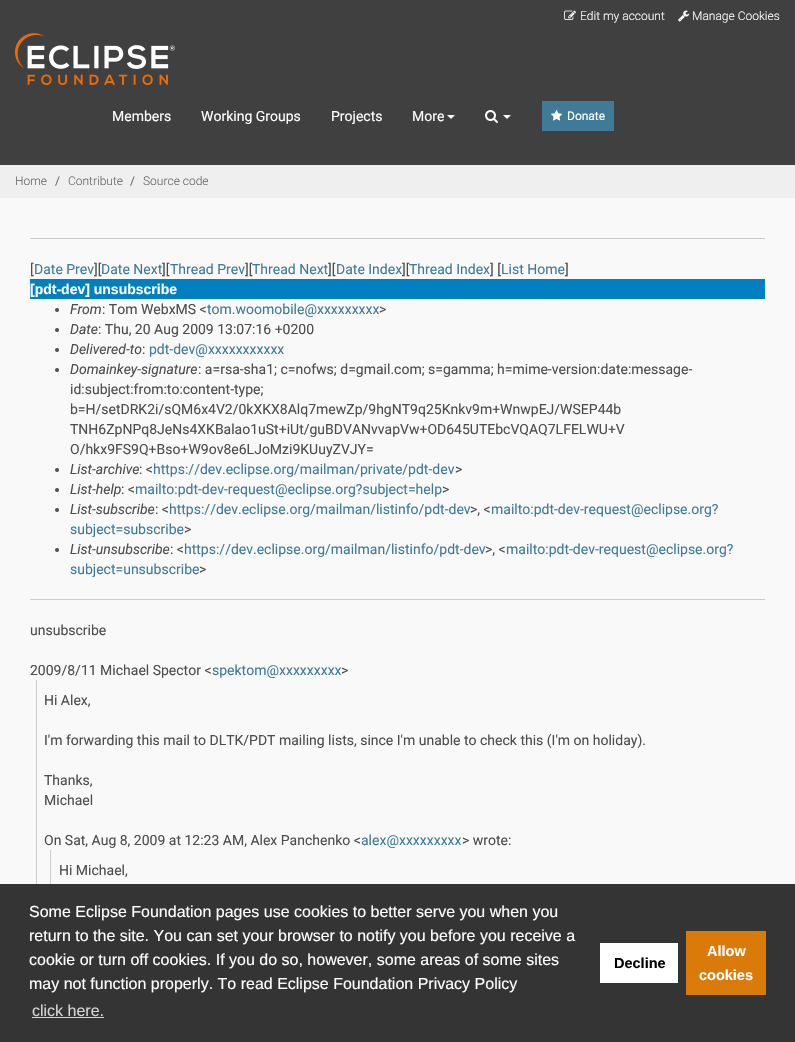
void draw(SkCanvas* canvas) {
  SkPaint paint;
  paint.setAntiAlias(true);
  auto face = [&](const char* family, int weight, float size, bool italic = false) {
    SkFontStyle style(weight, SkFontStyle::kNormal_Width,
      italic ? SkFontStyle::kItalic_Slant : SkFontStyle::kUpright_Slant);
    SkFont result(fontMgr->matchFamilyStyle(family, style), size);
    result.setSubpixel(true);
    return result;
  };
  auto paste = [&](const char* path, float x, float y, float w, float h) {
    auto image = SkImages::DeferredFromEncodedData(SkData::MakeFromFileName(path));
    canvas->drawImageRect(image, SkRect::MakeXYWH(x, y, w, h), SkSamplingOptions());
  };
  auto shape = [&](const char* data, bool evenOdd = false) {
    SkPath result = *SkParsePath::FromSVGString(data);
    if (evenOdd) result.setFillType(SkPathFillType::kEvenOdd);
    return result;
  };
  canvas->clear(0xfff9f9f9);
  paint.setColor(0xff404040);
  canvas->drawRect(SkRect::MakeXYWH(0, 0, 795, 165), paint);
  paste("img/1.png", 564, 10, 12, 10);
  paste("img/2.png", 678, 10, 12, 12);
  paste("img/3.png", 15, 33, 160, 52);
  paint.setColor(0xffffffff);
  canvas->drawPath(shape("M447 115H455L451 119Z"), paint);
  paste("img/4.png", 485, 110, 13, 13);
  canvas->drawPath(shape("M503 115H511L507 119Z"), paint);
  paint.setColor(0xff3f7b96);
  canvas->drawRect(SkRect::MakeXYWH(542, 101, 72, 30), paint);
  paste("img/5.png", 551, 110, 12, 11);
  {
    const struct { float x, y, w, h; SkColor color; } items[] = {
      {0, 165, 795, 33, 0xffefefef},
      {30, 238, 735, 1, 0xffcccccc},
      {30, 279, 735, 20, 0xff0080c0},
    };
    for (auto [x, y, w, h, color] : items) {
      paint.setColor(color);
      canvas->drawRect(SkRect::MakeXYWH(x, y, w, h), paint);
    }
  }
  paint.setColor(0xff4c4d4e);
  canvas->drawCircle(57, 310, 2, paint);
  canvas->drawCircle(57, 330, 2, paint);
  canvas->drawCircle(57, 350, 2, paint);
  canvas->drawCircle(57, 370, 2, paint);
  canvas->drawCircle(57, 470, 2, paint);
  canvas->drawCircle(57, 490, 2, paint);
  canvas->drawCircle(57, 510, 2, paint);
  canvas->drawCircle(57, 550, 2, paint);
  {
    const struct { float x, y, w, h; SkColor color; } items[] = {
      {30, 599, 735, 1, 0xffcccccc},
      {36, 680, 1, 204, 0xffcccccc},
      {50, 850, 1, 34, 0xffcccccc},
      {0, 884, 795, 158, 0xff353434},
      {32, 1017, 72, 1, 0xffd7d6d6},
      {600, 943, 78, 40, 0xffffffff},
      {686, 931, 80, 64, 0xffda7a08},
    };
    for (auto [x, y, w, h, color] : items) {
      paint.setColor(color);
      canvas->drawRect(SkRect::MakeXYWH(x, y, w, h), paint);
    }
  }
  auto f0 = face("Roboto", 300, 12);
  paint.setColor(0xffffffff);
  canvas->drawString("Edit my account", 580, 20, f0, paint);
  canvas->drawString("Manage Cookies", 692, 20, f0, paint);
  auto f1 = face("Roboto", 400, 14);
  {
    const struct { const char* s; float x, y; } items[] = {
      {"Members", 112, 121},
      {"Working Groups", 201, 121},
      {"Projects", 331, 121},
      {"More", 412, 121},
    };
    for (auto [s, x, y] : items) {
      canvas->drawString(s, x, y, f1, paint);
    }
  }
  auto f2 = face("Roboto", 400, 12);
  canvas->drawString("Donate", 567, 120, f2, paint);
  paint.setColor(0xff656668);
  canvas->drawString("Home", 15, 185, f0, paint);
  canvas->drawString("/", 55, 185, f2, paint);
  canvas->drawString("Contribute", 68, 185, f0, paint);
  canvas->drawString("/", 130, 185, f2, paint);
  canvas->drawString("Source code", 143, 185, f0, paint);
  paint.setColor(0xff4c4d4e);
  canvas->drawString("[", 30, 274, f1, paint);
  paint.setColor(0xff3f7b96);
  canvas->drawString("Date Prev", 34, 274, f1, paint);
  paint.setColor(0xff4c4d4e);
  canvas->drawString("][", 94, 274, f1, paint);
  paint.setColor(0xff3f7b96);
  canvas->drawString("Date Next", 101, 274, f1, paint);
  paint.setColor(0xff4c4d4e);
  canvas->drawString("][", 162, 274, f1, paint);
  paint.setColor(0xff3f7b96);
  canvas->drawString("Thread Prev", 170, 274, f1, paint);
  paint.setColor(0xff4c4d4e);
  canvas->drawString("][", 245, 274, f1, paint);
  paint.setColor(0xff3f7b96);
  canvas->drawString("Thread Next", 252, 274, f1, paint);
  paint.setColor(0xff4c4d4e);
  canvas->drawString("][", 328, 274, f1, paint);
  paint.setColor(0xff3f7b96);
  canvas->drawString("Date Index", 336, 274, f1, paint);
  paint.setColor(0xff4c4d4e);
  canvas->drawString("][", 402, 274, f1, paint);
  paint.setColor(0xff3f7b96);
  canvas->drawString("Thread Index", 409, 274, f1, paint);
  paint.setColor(0xff4c4d4e);
  canvas->drawString("] [", 490, 274, f1, paint);
  paint.setColor(0xff3f7b96);
  canvas->drawString("List Home", 501, 274, f1, paint);
  paint.setColor(0xff4c4d4e);
  canvas->drawString("]", 565, 274, f1, paint);
  auto f3 = face("Liberation Sans", 700, 14);
  paint.setColor(0xffffffff);
  canvas->drawString("[pdt-dev] unsubscribe", 30, 294, f3, paint);
  auto f4 = face("Roboto", 400, 14, true);
  paint.setColor(0xff4c4d4e);
  canvas->drawString("From", 70, 314, f4, paint);
  canvas->drawString(": Tom WebxMS <", 102, 314, f1, paint);
  paint.setColor(0xff3f7b96);
  canvas->drawString("tom.woomobile@xxxxxxxxx", 207, 314, f1, paint);
  paint.setColor(0xff4c4d4e);
  canvas->drawString(">", 379, 314, f1, paint);
  canvas->drawString("Date", 70, 334, f4, paint);
  canvas->drawString(": Thu, 20 Aug 2009 13:07:16 +0200", 98, 334, f1, paint);
  canvas->drawString("Delivered-to", 70, 354, f4, paint);
  canvas->drawString(":", 142, 354, f1, paint);
  paint.setColor(0xff3f7b96);
  canvas->drawString("pdt-dev@xxxxxxxxxxx", 149, 354, f1, paint);
  paint.setColor(0xff4c4d4e);
  canvas->drawString("Domainkey-signature", 70, 374, f4, paint);
  {
    const struct { const char* s; float x, y; } items[] = {
      {": a=rsa-sha1; c=nofws; d=gmail.com; s=gamma; h=mime-version:date:message-", 198, 374},
      {"id:subject:from:to:content-type;", 70, 394},
      {"b=H/setDRK2i/sQM6x4V2/0kXKX8Alq7mewZp/9hgNT9q25Knkv9m+WnwpEJ/WSEP44b", 70, 414},
      {"TNH6ZpNPq8JeNs4XKBalao1uSt+iUt/guBDVANvvapVw+OD645UTEbcVQAQ7LFELWU+V", 70, 434},
      {"O/hkx9FS9Q+Bso+W9ov8e6LJoMzi9KUuyZVJY=", 70, 454},
    };
    for (auto [s, x, y] : items) {
      canvas->drawString(s, x, y, f1, paint);
    }
  }
  canvas->drawString("List-archive", 70, 474, f4, paint);
  canvas->drawString(": <", 139, 474, f1, paint);
  paint.setColor(0xff3f7b96);
  canvas->drawString("https://dev.eclipse.org/mailman/private/pdt-dev", 153, 474, f1, paint);
  paint.setColor(0xff4c4d4e);
  canvas->drawString(">", 455, 474, f1, paint);
  canvas->drawString("List-help", 70, 494, f4, paint);
  canvas->drawString(": <", 121, 494, f1, paint);
  paint.setColor(0xff3f7b96);
  canvas->drawString("mailto:pdt-dev-request@eclipse.org?subject=help", 135, 494, f1, paint);
  paint.setColor(0xff4c4d4e);
  canvas->drawString(">", 442, 494, f1, paint);
  canvas->drawString("List-subscribe", 70, 514, f4, paint);
  canvas->drawString(": <", 155, 514, f1, paint);
  paint.setColor(0xff3f7b96);
  canvas->drawString("https://dev.eclipse.org/mailman/listinfo/pdt-dev", 169, 514, f1, paint);
  paint.setColor(0xff4c4d4e);
  canvas->drawString(">, <", 470, 514, f1, paint);
  paint.setColor(0xff3f7b96);
  canvas->drawString("mailto:pdt-dev-request@eclipse.org?", 491, 514, f1, paint);
  canvas->drawString("subject=subscribe", 70, 534, f1, paint);
  paint.setColor(0xff4c4d4e);
  canvas->drawString(">", 184, 534, f1, paint);
  canvas->drawString("List-unsubscribe", 70, 554, f4, paint);
  canvas->drawString(": <", 170, 554, f1, paint);
  paint.setColor(0xff3f7b96);
  canvas->drawString("https://dev.eclipse.org/mailman/listinfo/pdt-dev", 184, 554, f1, paint);
  paint.setColor(0xff4c4d4e);
  canvas->drawString(">, <", 485, 554, f1, paint);
  paint.setColor(0xff3f7b96);
  canvas->drawString("mailto:pdt-dev-request@eclipse.org?", 506, 554, f1, paint);
  canvas->drawString("subject=unsubscribe", 70, 574, f1, paint);
  paint.setColor(0xff4c4d4e);
  {
    const struct { const char* s; float x, y; } items[] = {
      {">", 199, 574},
      {"unsubscribe", 30, 635},
      {"2009/8/11 Michael Spector <", 30, 675},
    };
    for (auto [s, x, y] : items) {
      canvas->drawString(s, x, y, f1, paint);
    }
  }
  paint.setColor(0xff3f7b96);
  canvas->drawString("spektom@xxxxxxxxx", 212, 675, f1, paint);
  paint.setColor(0xff4c4d4e);
  {
    const struct { const char* s; float x, y; } items[] = {
      {">", 341, 675},
      {"Hi Alex,", 44, 705},
      {"I'm forwarding this mail to DLTK/PDT mailing lists, since I'm unable to check this (I'm on holiday).", 44, 745},
      {"Thanks,", 44, 785},
      {"Michael", 44, 805},
      {"On Sat, Aug 8, 2009 at 12:23 AM, Alex Panchenko <", 44, 845},
    };
    for (auto [s, x, y] : items) {
      canvas->drawString(s, x, y, f1, paint);
    }
  }
  paint.setColor(0xff3f7b96);
  canvas->drawString("alex@xxxxxxxxx", 361, 845, f1, paint);
  paint.setColor(0xff4c4d4e);
  canvas->drawString("> wrote:", 462, 845, f1, paint);
  canvas->drawString("Hi Michael,", 59, 875, f1, paint);
  auto f5 = face("Liberation Sans", 400, 16);
  paint.setColor(0xffffffff);
  {
    const struct { const char* s; float x, y; } items[] = {
      {"Some Eclipse Foundation pages use cookies to better serve you when you", 29, 917},
      {"return to the site. You can set your browser to notify you before you receive a", 29, 941},
      {"cookie or turn off cookies. If you do so, however, some areas of some sites", 29, 965},
      {"may not function properly. To read Eclipse Foundation Privacy Policy", 29, 989},
    };
    for (auto [s, x, y] : items) {
      canvas->drawString(s, x, y, f5, paint);
    }
  }
  paint.setColor(0xffd7d6d6);
  canvas->drawString("click here.", 32, 1016, f5, paint);
  auto f6 = face("Liberation Sans", 700, 14.5f);
  paint.setColor(0xff000000);
  canvas->drawString("Decline", 614, 968, f6, paint);
  paint.setColor(0xffffffff);
  canvas->drawString("Allow", 707, 956, f6, paint);
  canvas->drawString("cookies", 699, 980, f6, paint);
}
